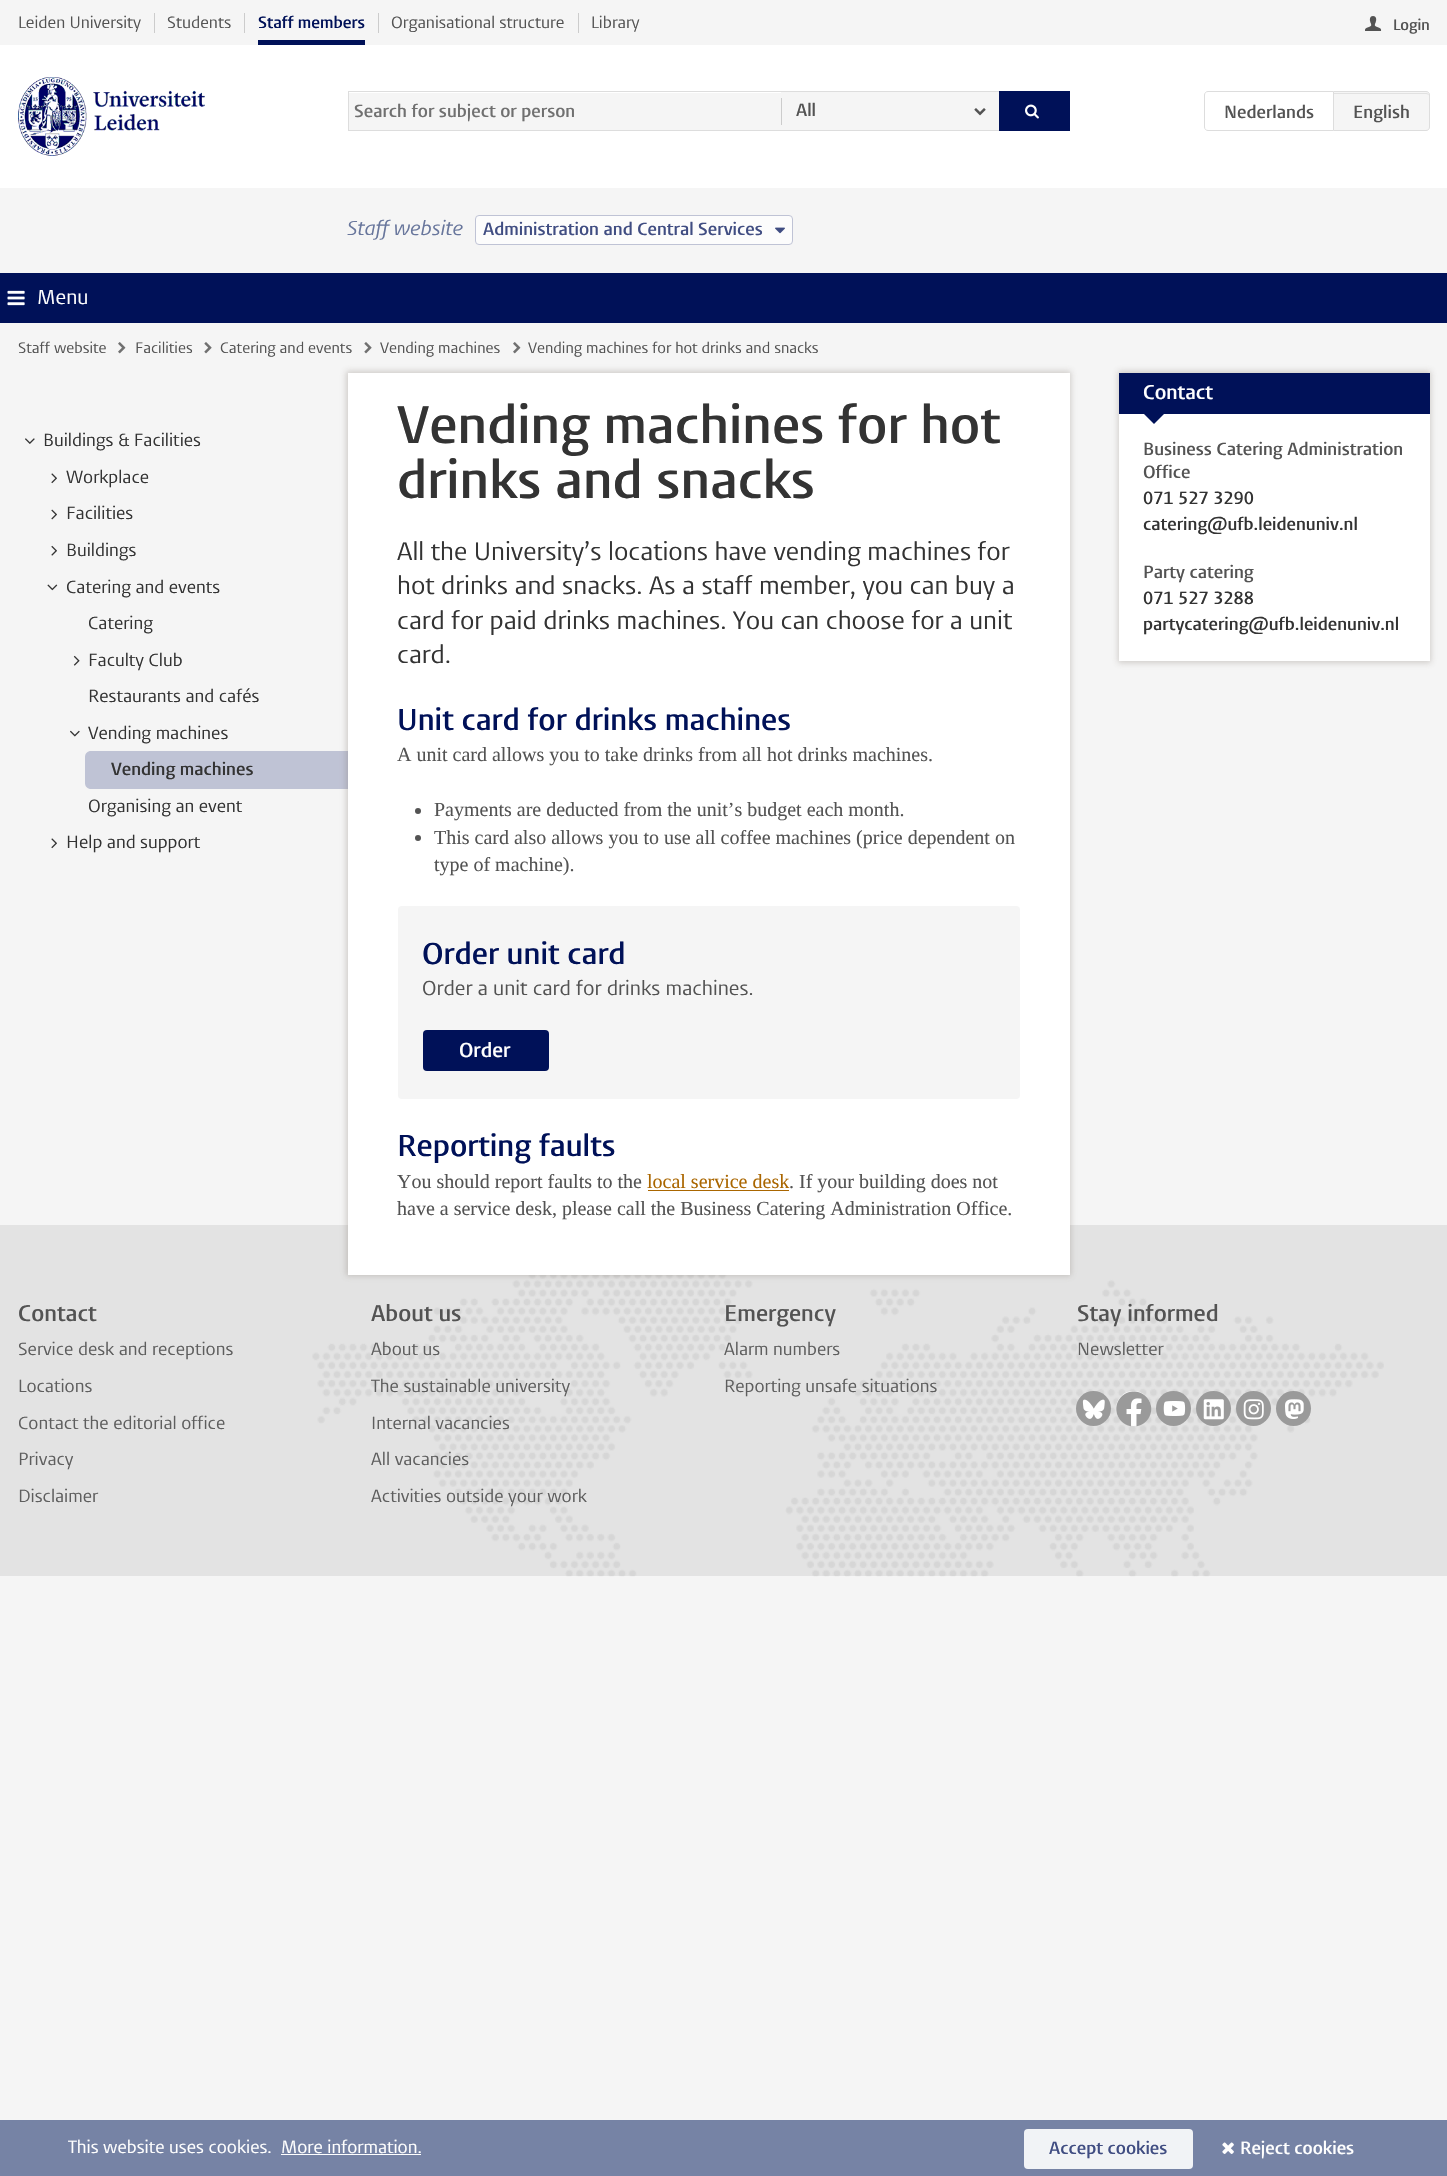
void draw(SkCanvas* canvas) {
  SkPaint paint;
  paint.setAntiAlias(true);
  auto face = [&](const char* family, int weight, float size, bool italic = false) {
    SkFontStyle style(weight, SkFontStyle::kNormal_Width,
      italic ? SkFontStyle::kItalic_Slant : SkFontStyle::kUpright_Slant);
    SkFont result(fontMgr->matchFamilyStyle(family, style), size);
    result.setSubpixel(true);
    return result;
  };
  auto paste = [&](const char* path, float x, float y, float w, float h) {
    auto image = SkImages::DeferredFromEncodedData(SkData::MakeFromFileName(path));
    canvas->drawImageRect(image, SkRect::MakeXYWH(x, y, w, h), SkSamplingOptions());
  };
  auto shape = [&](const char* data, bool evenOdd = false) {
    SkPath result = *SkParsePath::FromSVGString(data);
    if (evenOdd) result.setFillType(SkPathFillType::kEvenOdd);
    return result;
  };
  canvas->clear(0xfff5f5f5);
  {
    const struct { float x, y, w, h; SkColor color; } items[] = {
      {0, 45, 1447, 143, 0xffffffff},
      {154, 13, 1, 20, 0xffcccccc},
      {244, 13, 1, 20, 0xffcccccc},
      {378, 13, 1, 20, 0xffcccccc},
      {258, 40, 107, 5, 0xff001158},
      {578, 13, 1, 20, 0xffcccccc},
    };
    for (auto [x, y, w, h, color] : items) {
      paint.setColor(color);
      canvas->drawRect(SkRect::MakeXYWH(x, y, w, h), paint);
    }
  }
  paste("img/1.png", 1365, 16, 17, 15);
  paste("img/2.png", 18, 77, 187, 79);
  {
    const struct { float x, y, w, h; SkColor color; } items[] = {
      {349, 93, 432, 37, 0xfff5f5f5},
      {348, 91, 651, 1, 0xffdddddd},
      {348, 130, 651, 1, 0xffdddddd},
      {348, 91, 1, 40, 0xffdddddd},
      {781, 92, 218, 38, 0xfff5f5f5},
      {781, 98, 1, 27, 0xffcccccc},
    };
    for (auto [x, y, w, h, color] : items) {
      paint.setColor(color);
      canvas->drawRect(SkRect::MakeXYWH(x, y, w, h), paint);
    }
  }
  paste("img/3.png", 974, 108, 12, 8);
  paint.setColor(0xff001158);
  canvas->drawRect(SkRect::MakeXYWH(999, 91, 71, 40), paint);
  paste("img/4.png", 1025, 104, 14, 15);
  paint.setStroke(true);
  paint.setStrokeWidth(1);
  paint.setColor(0xffdddddd);
  canvas->drawPath(shape("M1208 91.5H1333.5V130.5H1208C1206 130.5 1204.5 129 1204.5 127V95C1204.5 93 1206 91.5 1208 91.5Z"), paint);
  paint.setStroke(false);
  paint.setColor(0xfff5f5f5);
  canvas->drawPath(shape("M1333 91H1426C1428 91 1430 93 1430 95V127C1430 129 1428 131 1426 131H1333Z"), paint);
  paint.setColor(0xffe1e1e1);
  canvas->drawPath(shape("M1334 94H1426C1428 94 1429 95 1429 96C1429 94 1428 93 1426 93H1334Z"), paint);
  paint.setStroke(true);
  paint.setColor(0xffdddddd);
  canvas->drawPath(shape("M1333.5 91.5H1426C1428 91.5 1429.5 93 1429.5 95V127C1429.5 129 1428 130.5 1426 130.5H1333.5Z"), paint);
  paint.setStroke(false);
  paint.setColor(0xfffcfcfc);
  canvas->drawRoundRect(SkRect::MakeXYWH(475.5f, 215.5f, 317, 29), 3.5f, 3.5f, paint);
  paint.setStroke(true);
  paint.setColor(0xffbfc3d5);
  canvas->drawRoundRect(SkRect::MakeXYWH(475.5f, 215.5f, 317, 29), 3.5f, 3.5f, paint);
  paste("img/5.png", 775, 227, 10, 7);
  paint.setStroke(false);
  paint.setColor(0xff001158);
  canvas->drawRect(SkRect::MakeXYWH(0, 273, 1447, 50), paint);
  paste("img/6.png", 7, 290, 18, 16);
  paste("img/7.png", 118, 342, 8, 12);
  paste("img/8.png", 204, 342, 8, 12);
  paste("img/8.png", 364, 342, 8, 12);
  paste("img/7.png", 513, 342, 8, 12);
  paste("img/9.png", 25, 438, 10, 6);
  paste("img/10.png", 51, 473, 6, 11);
  paste("img/11.png", 51, 509, 6, 11);
  paste("img/12.png", 51, 545, 6, 11);
  paste("img/13.png", 47, 584, 11, 7);
  paste("img/14.png", 73, 655, 7, 11);
  paste("img/15.png", 70, 730, 10, 7);
  paint.setColor(0xffbfc3d5);
  canvas->drawPath(shape("M91 751H348V789H91C87.5 789 85 786.5 85 783V757C85 753.5 87.5 751 91 751Z"), paint);
  paste("img/10.png", 51, 838, 6, 11);
  paint.setColor(0xffe3e3e3);
  canvas->drawRect(SkRect::MakeXYWH(0, 1225, 1447, 351), paint);
  paste("img/16.png", 312, 1275, 1072, 302);
  paint.setColor(0x4d786e64);
  paint.setMaskFilter(SkMaskFilter::MakeBlur(kNormal_SkBlurStyle, 3));
  canvas->drawRect(SkRect::MakeXYWH(346, 371, 725, 905), paint);
  paint.setMaskFilter(nullptr);
  paint.setColor(0xffffffff);
  canvas->drawRect(SkRect::MakeXYWH(348, 373, 722, 902), paint);
  paint.setColor(0xff535353);
  canvas->drawCircle(418, 811, 3, paint);
  canvas->drawCircle(418, 838, 3, paint);
  paint.setColor(0xfff5f5f5);
  canvas->drawRoundRect(SkRect::MakeXYWH(398, 906, 622, 193), 4, 4, paint);
  paint.setColor(0xff001158);
  canvas->drawRoundRect(SkRect::MakeXYWH(423, 1030, 126, 41), 4, 4, paint);
  paint.setColor(0xffaa6600);
  canvas->drawRect(SkRect::MakeXYWH(648, 1190, 141, 1), paint);
  paint.setColor(0x4d786e64);
  paint.setMaskFilter(SkMaskFilter::MakeBlur(kNormal_SkBlurStyle, 3));
  canvas->drawRect(SkRect::MakeXYWH(1118, 371, 313, 292), paint);
  paint.setMaskFilter(nullptr);
  paint.setColor(0xffffffff);
  canvas->drawRect(SkRect::MakeXYWH(1119, 414, 311, 247), paint);
  paint.setColor(0xff001158);
  canvas->drawRect(SkRect::MakeXYWH(1119, 373, 311, 41), paint);
  canvas->drawPath(shape("M1144 414H1164L1154 424Z"), paint);
  paint.setColor(0xff9a9a9a);
  canvas->drawCircle(1093.5f, 1408.5f, 17.5f, paint);
  paste("img/17.png", 1082, 1399, 23, 20);
  paint.setColor(0xffffffff);
  canvas->drawCircle(1133.5f, 1408.5f, 17.5f, paint);
  paste("img/18.png", 1116, 1391, 36, 36);
  paint.setColor(0xff9a9a9a);
  canvas->drawCircle(1173.5f, 1408.5f, 17.5f, paint);
  paste("img/19.png", 1163, 1401, 23, 15);
  canvas->drawCircle(1213.5f, 1408.5f, 17.5f, paint);
  paste("img/20.png", 1203, 1399, 21, 21);
  canvas->drawCircle(1253.5f, 1408.5f, 17.5f, paint);
  paste("img/21.png", 1243, 1399, 21, 21);
  canvas->drawCircle(1293.5f, 1408.5f, 17.5f, paint);
  paste("img/22.png", 1285, 1399, 19, 20);
  paint.setColor(0xff7683a5);
  canvas->drawRect(SkRect::MakeXYWH(0, 2120, 1447, 56), paint);
  paint.setColor(0xffffffff);
  canvas->drawRect(SkRect::MakeXYWH(281, 2154, 140, 1), paint);
  paint.setColor(0xfff1f3f6);
  canvas->drawRoundRect(SkRect::MakeXYWH(1024, 2129, 169, 40), 4, 4, paint);
  paste("img/23.png", 1222, 2142, 12, 12);
  auto f0 = face("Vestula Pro", 400, 16.25f);
  paint.setColor(0xff535353);
  canvas->drawString("Leiden University", 18, 28, f0, paint);
  canvas->drawString("Students", 167, 28, f0, paint);
  auto f1 = face("Vestula Pro", 600, 16.25f);
  paint.setColor(0xff001158);
  canvas->drawString("Staff members", 258, 28, f1, paint);
  paint.setColor(0xff535353);
  canvas->drawString("Organisational structure", 391, 28, f0, paint);
  canvas->drawString("Library", 591, 28, f0, paint);
  auto f2 = face("Vestula Pro", 600, 15);
  canvas->drawString("Login", 1393, 30, f2, paint);
  auto f3 = face("Vestula Pro", 600, 17.5f);
  paint.setColor(0xff707070);
  canvas->drawString("Search for subject or person", 354, 117, f3, paint);
  paint.setColor(0xff535353);
  {
    const struct { const char* s; float x, y; } items[] = {
      {"All", 796, 116},
      {"Nederlands", 1224, 118},
      {"English", 1353, 118},
    };
    for (auto [s, x, y] : items) {
      canvas->drawString(s, x, y, f3, paint);
    }
  }
  auto f4 = face("Vestula Pro", 400, 20, true);
  paint.setColor(0xff68769c);
  canvas->drawString("Staff website", 347, 235, f4, paint);
  paint.setColor(0xff404d82);
  canvas->drawString("Administration and Central Services", 483, 235, f3, paint);
  auto f5 = face("Vestula Pro", 400, 20);
  paint.setColor(0xffffffff);
  canvas->drawString("Menu", 37, 304, f5, paint);
  auto f6 = face("Vestula Pro", 400, 15);
  paint.setColor(0xff535353);
  {
    const struct { const char* s; float x, y; } items[] = {
      {"Staff website", 18, 353},
      {"Facilities", 135, 353},
      {"Catering and events", 220, 353},
      {"Vending machines", 380, 353},
      {"Vending machines for hot drinks and snacks", 528, 353},
    };
    for (auto [s, x, y] : items) {
      canvas->drawString(s, x, y, f6, paint);
    }
  }
  auto f7 = face("Vestula Pro", 400, 17.5f);
  paint.setColor(0xff333333);
  {
    const struct { const char* s; float x, y; } items[] = {
      {"Buildings & Facilities", 43, 446},
      {"Workplace", 66, 483},
      {"Facilities", 66, 519},
      {"Buildings", 66, 556},
      {"Catering and events", 66, 593},
      {"Catering", 88, 629},
      {"Faculty Club", 88, 666},
      {"Restaurants and cafés", 88, 702},
      {"Vending machines", 88, 739},
    };
    for (auto [s, x, y] : items) {
      canvas->drawString(s, x, y, f7, paint);
    }
  }
  canvas->drawString("Vending machines", 111, 775, f3, paint);
  canvas->drawString("Organising an event", 88, 812, f7, paint);
  canvas->drawString("Help and support", 66, 848, f7, paint);
  auto f8 = face("Vestula Pro", 600, 52.5f);
  canvas->drawString("Vending machines for hot", 397, 443, f8, paint);
  canvas->drawString("drinks and snacks", 397, 498, f8, paint);
  auto f9 = face("Vestula Pro", 400, 25);
  {
    const struct { const char* s; float x, y; } items[] = {
      {"All the University’s locations have vending machines for", 397, 560},
      {"hot drinks and snacks. As a staff member, you can buy a", 397, 594},
      {"card for paid drinks machines. You can choose for a unit", 397, 629},
      {"card.", 397, 663},
    };
    for (auto [s, x, y] : items) {
      canvas->drawString(s, x, y, f9, paint);
    }
  }
  auto f10 = face("Vestula Pro", 600, 30);
  paint.setColor(0xff001158);
  canvas->drawString("Unit card for drinks machines", 397, 730, f10, paint);
  auto f11 = face("Liberation Serif", 400, 20);
  paint.setColor(0xff535353);
  {
    const struct { const char* s; float x, y; } items[] = {
      {"A unit card allows you to take drinks from all hot drinks machines.", 397, 761},
      {"Payments are deducted from the unit’s budget each month.", 434, 816},
      {"This card also allows you to use all coffee machines (price dependent on", 434, 844},
      {"type of machine).", 434, 871},
    };
    for (auto [s, x, y] : items) {
      canvas->drawString(s, x, y, f11, paint);
    }
  }
  paint.setColor(0xff001158);
  canvas->drawString("Order unit card", 422, 964, f10, paint);
  paint.setColor(0xff535353);
  canvas->drawString("Order a unit card for drinks machines.", 422, 995, f5, paint);
  auto f12 = face("Vestula Pro", 600, 20);
  paint.setColor(0xffffffff);
  canvas->drawString("Order", 459, 1057, f12, paint);
  paint.setColor(0xff001158);
  canvas->drawString("Reporting faults", 397, 1156, f10, paint);
  paint.setColor(0xff535353);
  canvas->drawString("You should report faults to the", 397, 1188, f11, paint);
  paint.setColor(0xffaa6600);
  canvas->drawString("local service desk", 647, 1188, f11, paint);
  paint.setColor(0xff535353);
  canvas->drawString(". If your building does not", 789, 1188, f11, paint);
  canvas->drawString("have a service desk, please call the Business Catering Administration Office.", 397, 1215, f11, paint);
  paint.setColor(0xffffffff);
  canvas->drawString("Contact", 1143, 399, f12, paint);
  paint.setColor(0xff535353);
  canvas->drawString("Business Catering Administration", 1143, 455, f3, paint);
  canvas->drawString("Office", 1143, 478, f3, paint);
  paint.setColor(0xff333333);
  canvas->drawString("071 527 3290", 1143, 504, f3, paint);
  canvas->drawString("catering@ufb.leidenuniv.nl", 1143, 530, f3, paint);
  paint.setColor(0xff535353);
  canvas->drawString("Party catering", 1143, 578, f3, paint);
  paint.setColor(0xff333333);
  canvas->drawString("071 527 3288", 1143, 604, f3, paint);
  canvas->drawString("partycatering@ufb.leidenuniv.nl", 1143, 630, f3, paint);
  auto f13 = face("Vestula Pro", 600, 22.5f);
  paint.setColor(0xff535353);
  canvas->drawString("Contact", 18, 1321, f13, paint);
  paint.setColor(0xff5e5e5e);
  {
    const struct { const char* s; float x, y; } items[] = {
      {"Service desk and receptions", 18, 1355},
      {"Locations", 18, 1392},
      {"Contact the editorial office", 18, 1429},
      {"Privacy", 18, 1465},
      {"Disclaimer", 18, 1502},
    };
    for (auto [s, x, y] : items) {
      canvas->drawString(s, x, y, f7, paint);
    }
  }
  paint.setColor(0xff535353);
  canvas->drawString("About us", 371, 1321, f13, paint);
  paint.setColor(0xff5e5e5e);
  {
    const struct { const char* s; float x, y; } items[] = {
      {"About us", 371, 1355},
      {"The sustainable university", 371, 1392},
      {"Internal vacancies", 371, 1429},
      {"All vacancies", 371, 1465},
      {"Activities outside your work", 371, 1502},
    };
    for (auto [s, x, y] : items) {
      canvas->drawString(s, x, y, f7, paint);
    }
  }
  paint.setColor(0xff535353);
  canvas->drawString("Emergency", 724, 1321, f13, paint);
  paint.setColor(0xff5e5e5e);
  canvas->drawString("Alarm numbers", 724, 1355, f7, paint);
  canvas->drawString("Reporting unsafe situations", 724, 1392, f7, paint);
  paint.setColor(0xff535353);
  canvas->drawString("Stay informed", 1077, 1321, f13, paint);
  paint.setColor(0xff5e5e5e);
  canvas->drawString("Newsletter", 1077, 1355, f7, paint);
  paint.setColor(0xffffffff);
  canvas->drawString("This website uses cookies.", 68, 2153, f7, paint);
  canvas->drawString("More information.", 281, 2153, f7, paint);
  paint.setColor(0xff404d82);
  canvas->drawString("Accept cookies", 1049, 2154, f3, paint);
  paint.setColor(0xffffffff);
  canvas->drawString("Reject cookies", 1240, 2154, f3, paint);
}
